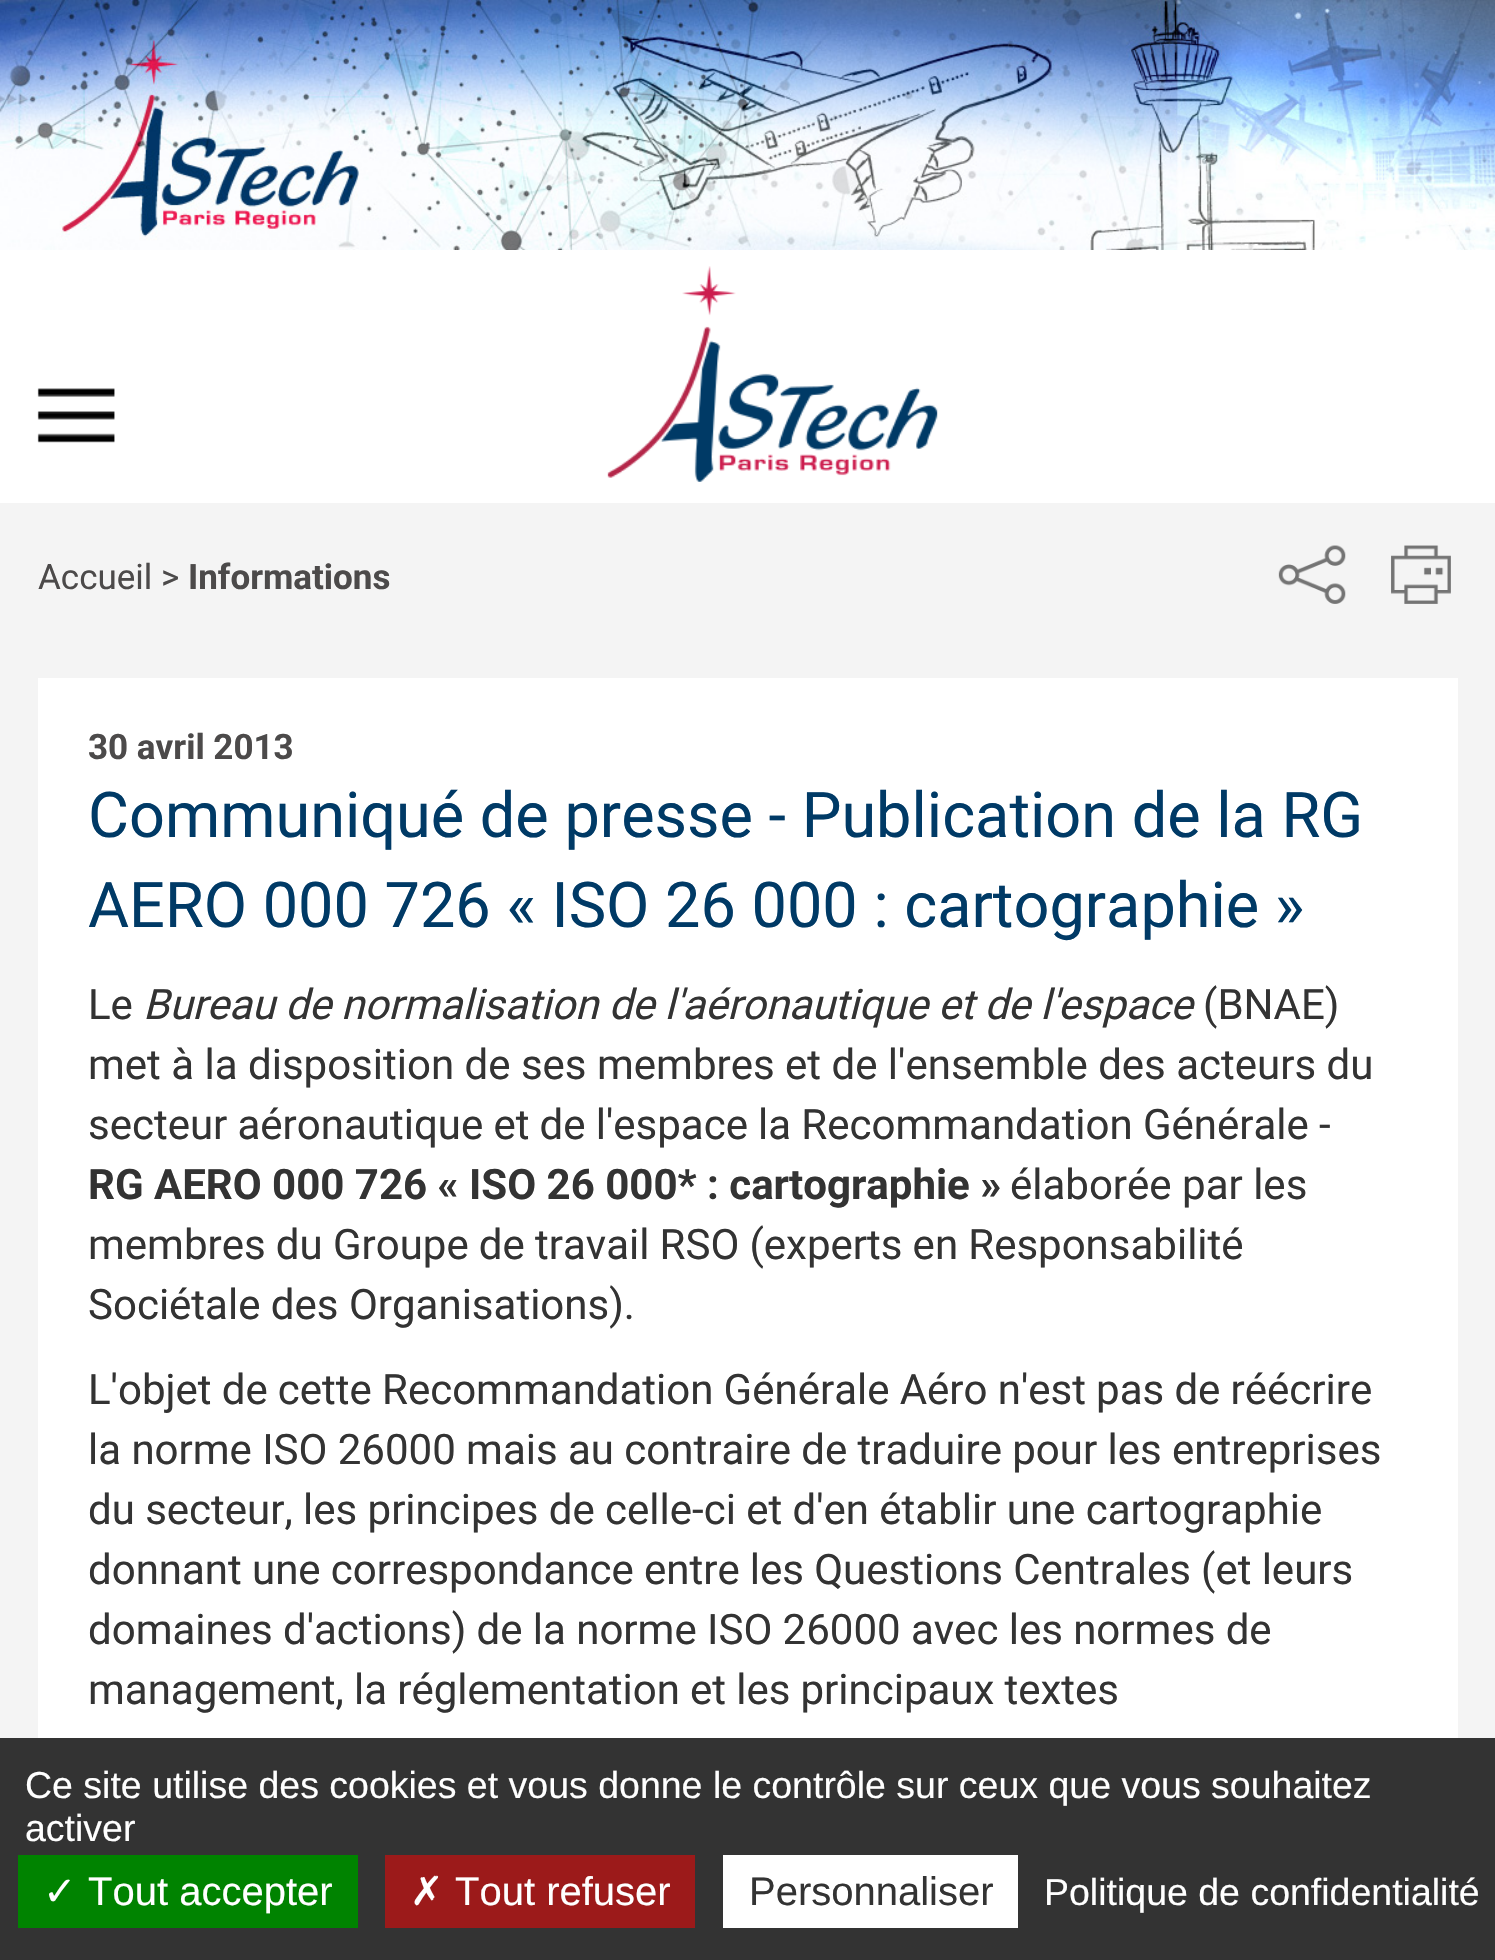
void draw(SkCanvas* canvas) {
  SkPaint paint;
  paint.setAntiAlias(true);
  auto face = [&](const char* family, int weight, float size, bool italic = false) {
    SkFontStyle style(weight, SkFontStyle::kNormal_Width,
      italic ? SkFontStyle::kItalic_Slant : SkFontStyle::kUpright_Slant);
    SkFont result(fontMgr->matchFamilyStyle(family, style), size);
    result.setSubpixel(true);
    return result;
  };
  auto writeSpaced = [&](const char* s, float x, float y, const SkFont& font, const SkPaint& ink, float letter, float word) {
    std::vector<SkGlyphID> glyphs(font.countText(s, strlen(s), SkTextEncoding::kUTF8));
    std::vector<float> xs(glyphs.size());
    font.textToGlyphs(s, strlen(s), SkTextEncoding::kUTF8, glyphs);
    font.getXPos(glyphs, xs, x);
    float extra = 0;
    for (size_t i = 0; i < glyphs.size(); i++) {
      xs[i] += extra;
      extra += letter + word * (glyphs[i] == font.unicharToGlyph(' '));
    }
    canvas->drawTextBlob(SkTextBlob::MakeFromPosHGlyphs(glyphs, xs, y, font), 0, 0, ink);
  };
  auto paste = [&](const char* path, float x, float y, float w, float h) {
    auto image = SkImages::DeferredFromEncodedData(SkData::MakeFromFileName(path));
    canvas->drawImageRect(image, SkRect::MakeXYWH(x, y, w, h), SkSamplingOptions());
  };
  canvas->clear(0xfff4f4f4);
  paste("img/1.png", 0, 0, 1495, 250);
  paint.setColor(0xffffffff);
  canvas->drawRect(SkRect::MakeXYWH(0, 250, 1495, 253), paint);
  paste("img/2.png", 37, 388, 78, 55);
  paste("img/3.png", 607, 266, 331, 216);
  paste("img/4.png", 1278, 545, 68, 59);
  paste("img/5.png", 1391, 545, 60, 59);
  {
    const struct { float x, y, w, h; SkColor color; } items[] = {
      {38, 678, 1420, 1060, 0xffffffff},
      {0, 1738, 1495, 222, 0xff333333},
      {18, 1855, 340, 73, 0xff008300},
      {385, 1855, 310, 73, 0xff9c1a1a},
      {723, 1855, 295, 73, 0xffffffff},
    };
    for (auto [x, y, w, h, color] : items) {
      paint.setColor(color);
      canvas->drawRect(SkRect::MakeXYWH(x, y, w, h), paint);
    }
  }
  auto f0 = face("Roboto", 400, 35);
  paint.setColor(0xff4c4a4a);
  canvas->drawString("Accueil >", 38, 589, f0, paint);
  auto f1 = face("Roboto", 700, 35);
  canvas->drawString("Informations", 188, 589, f1, paint);
  canvas->drawString("30 avril 2013", 88, 759, f1, paint);
  auto f2 = face("Roboto", 400, 63);
  paint.setColor(0xff003a66);
  canvas->drawString("Communiqué de presse - Publication de la RG", 88, 837, f2, paint);
  canvas->drawString("AERO 000 726 « ISO 26 000 : cartographie »", 88, 927, f2, paint);
  auto f3 = face("Roboto", 400, 42);
  paint.setColor(0xff333333);
  canvas->drawString("Le", 88, 1019, f3, paint);
  auto f4 = face("Roboto", 400, 42, true);
  writeSpaced("Bureau de normalisation de l'aéronautique et de l'espace", 143, 1019, f4, paint, 0, -0.25f);
  canvas->drawString("(BNAE)", 1203, 1019, f3, paint);
  canvas->drawString("met à la disposition de ses membres et de l'ensemble des acteurs du", 88, 1079, f3, paint);
  writeSpaced("secteur aéronautique et de l'espace la Recommandation Générale -", 88, 1139, f3, paint, 0, -0.25f);
  auto f5 = face("Roboto", 700, 42);
  canvas->drawString("RG AERO 000 726 « ISO 26 000* : cartographie »", 88, 1199, f5, paint);
  canvas->drawString("élaborée par les", 1010, 1199, f3, paint);
  writeSpaced("membres du Groupe de travail RSO (experts en Responsabilité", 88, 1259, f3, paint, 0, -0.25f);
  canvas->drawString("Sociétale des Organisations).", 88, 1319, f3, paint);
  writeSpaced("L'objet de cette Recommandation Générale Aéro n'est pas de réécrire", 88, 1404, f3, paint, 0, -0.25f);
  writeSpaced("la norme ISO 26000 mais au contraire de traduire pour les entreprises", 88, 1464, f3, paint, 0, -0.1f);
  writeSpaced("du secteur, les principes de celle-ci et d'en établir une cartographie", 88, 1524, f3, paint, 0, -0.1f);
  writeSpaced("donnant une correspondance entre les Questions Centrales (et leurs", 88, 1584, f3, paint, 0, -0.25f);
  writeSpaced("domaines d'actions) de la norme ISO 26000 avec les normes de", 88, 1644, f3, paint, 0, -0.1f);
  writeSpaced("management, la réglementation et les principaux textes", 88, 1704, f3, paint, 0, -0.25f);
  auto f6 = face("Liberation Sans", 400, 37.5f);
  paint.setColor(0xffffffff);
  canvas->drawString("Ce site utilise des cookies et vous donne le contrôle sur ceux que vous souhaitez", 25, 1798, f6, paint);
  canvas->drawString("activer", 25, 1841, f6, paint);
  auto f7 = face("DejaVu Sans", 400, 40);
  canvas->drawString("✓", 43, 1905, f7, paint);
  auto f8 = face("Liberation Sans", 400, 40);
  canvas->drawString("Tout accepter", 88, 1905, f8, paint);
  canvas->drawString("✗", 410, 1905, f7, paint);
  canvas->drawString("Tout refuser", 455, 1905, f8, paint);
  paint.setColor(0xff333333);
  canvas->drawString("Personnaliser", 749, 1905, f8, paint);
  paint.setColor(0xffffffff);
  canvas->drawString("Politique de confidentialité", 1044, 1905, f6, paint);
}
